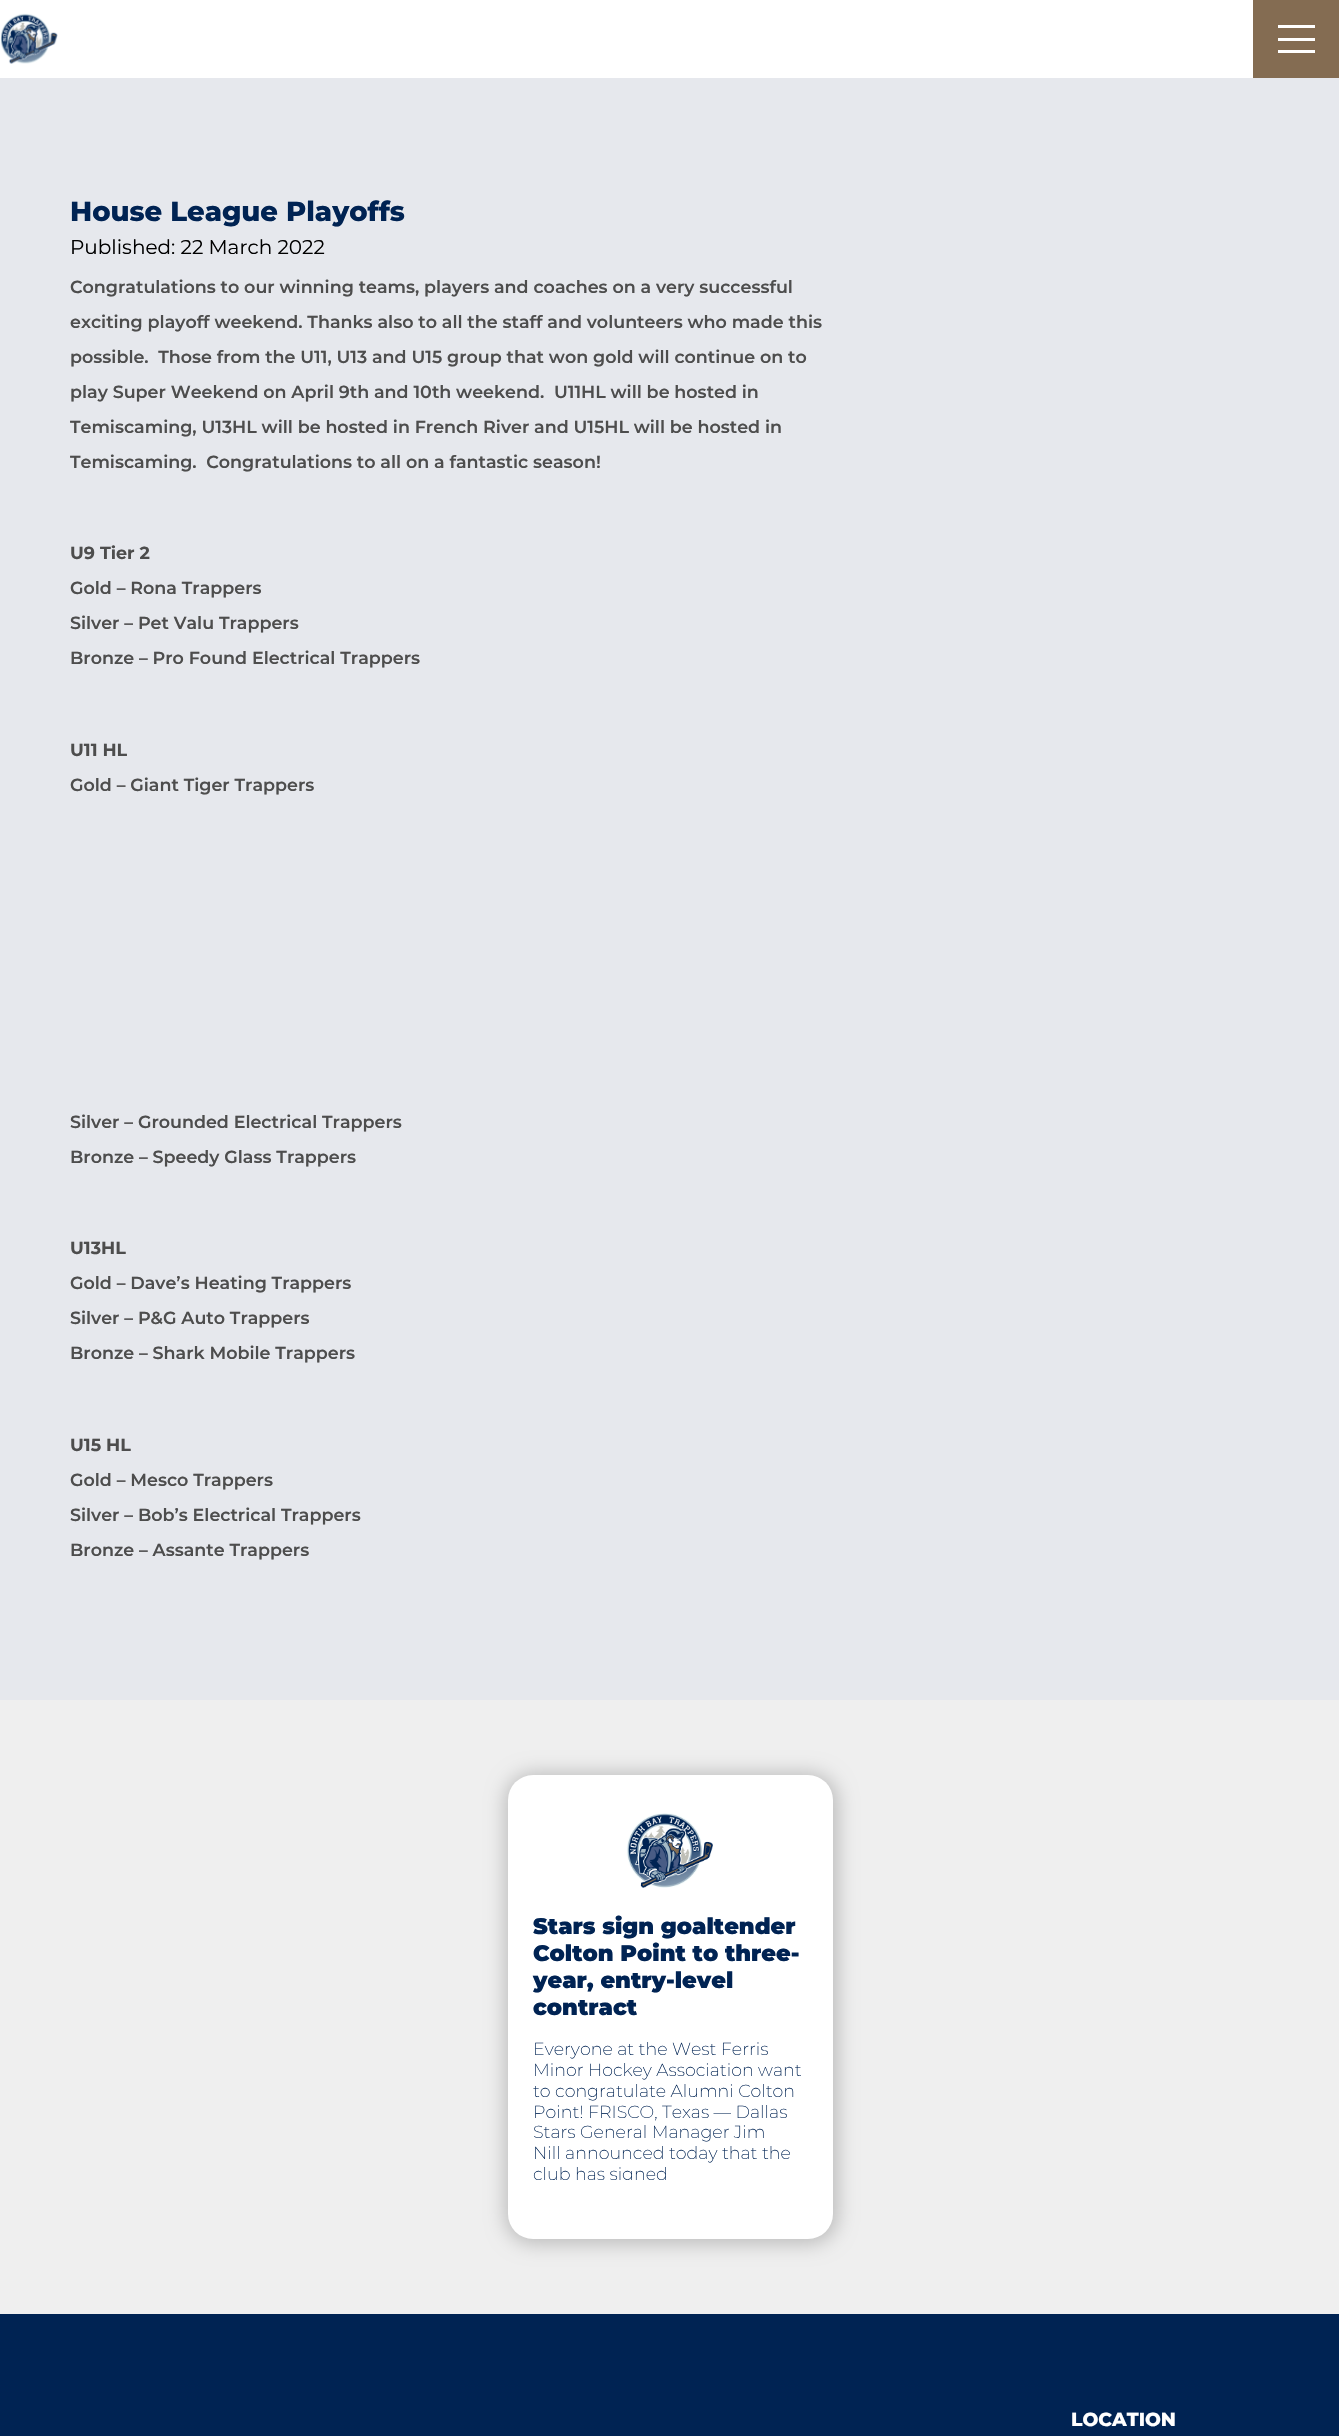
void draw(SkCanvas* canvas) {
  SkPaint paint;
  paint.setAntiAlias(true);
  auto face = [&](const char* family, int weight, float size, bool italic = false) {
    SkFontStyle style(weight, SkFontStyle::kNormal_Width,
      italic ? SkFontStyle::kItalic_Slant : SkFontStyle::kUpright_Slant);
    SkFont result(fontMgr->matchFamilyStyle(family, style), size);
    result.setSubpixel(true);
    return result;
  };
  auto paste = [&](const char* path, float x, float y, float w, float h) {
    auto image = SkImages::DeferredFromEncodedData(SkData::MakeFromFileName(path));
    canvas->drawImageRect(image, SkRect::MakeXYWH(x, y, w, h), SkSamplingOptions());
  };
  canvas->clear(0xffffffff);
  paste("img/1.png", 0, 13, 58, 51);
  {
    const struct { float x, y, w, h; SkColor color; } items[] = {
      {1253, 0, 86, 78, 0xff846c52},
      {1278, 38, 37, 3, 0xffffffff},
      {1278, 25, 37, 3, 0xffffffff},
      {1278, 50, 37, 3, 0xffffffff},
      {0, 78, 1339, 1622, 0xffe6e8ed},
      {0, 1700, 1339, 614, 0xffefefef},
    };
    for (auto [x, y, w, h, color] : items) {
      paint.setColor(color);
      canvas->drawRect(SkRect::MakeXYWH(x, y, w, h), paint);
    }
  }
  paint.setColor(0xffbcbcbc);
  paint.setMaskFilter(SkMaskFilter::MakeBlur(kNormal_SkBlurStyle, 9.5f));
  canvas->drawRoundRect(SkRect::MakeXYWH(505, 1773, 333, 471), 29, 29, paint);
  paint.setMaskFilter(nullptr);
  paint.setColor(0xffffffff);
  canvas->drawRoundRect(SkRect::MakeXYWH(508, 1775, 325, 464), 25, 25, paint);
  paste("img/2.png", 626, 1813, 87, 75);
  paint.setColor(0xff002353);
  canvas->drawRect(SkRect::MakeXYWH(0, 2314, 1339, 122), paint);
  auto f0 = face("Montserrat", 800, 27.5f);
  canvas->drawString("House League Playoffs", 70, 221, f0, paint);
  auto f1 = face("Montserrat", 400, 20);
  paint.setColor(0xff000000);
  canvas->drawString("Published: 22 March 2022", 70, 254, f1, paint);
  auto f2 = face("Montserrat", 600, 17.5f);
  paint.setColor(0xff4d4d4d);
  {
    const struct { const char* s; float x, y; } items[] = {
      {"Congratulations to our winning teams, players and coaches on a very successful", 70, 293},
      {"exciting playoff weekend. Thanks also to all the staff and volunteers who made this", 70, 328},
      {"possible.  Those from the U11, U13 and U15 group that won gold will continue on to", 70, 363},
      {"play Super Weekend on April 9th and 10th weekend.  U11HL will be hosted in", 70, 398},
      {"Temiscaming, U13HL will be hosted in French River and U15HL will be hosted in", 70, 433},
      {"Temiscaming.  Congratulations to all on a fantastic season!", 70, 468},
    };
    for (auto [s, x, y] : items) {
      canvas->drawString(s, x, y, f2, paint);
    }
  }
  auto f3 = face("Montserrat", 700, 17.5f);
  canvas->drawString("U9 Tier 2", 70, 559, f3, paint);
  {
    const struct { const char* s; float x, y; } items[] = {
      {"Gold – Rona Trappers", 70, 594},
      {"Silver – Pet Valu Trappers", 70, 629},
      {"Bronze – Pro Found Electrical Trappers", 70, 664},
    };
    for (auto [s, x, y] : items) {
      canvas->drawString(s, x, y, f2, paint);
    }
  }
  canvas->drawString("U11 HL", 70, 756, f3, paint);
  {
    const struct { const char* s; float x, y; } items[] = {
      {"Gold – Giant Tiger Trappers", 70, 791},
      {"Silver – Grounded Electrical Trappers", 70, 1128},
      {"Bronze – Speedy Glass Trappers", 70, 1163},
    };
    for (auto [s, x, y] : items) {
      canvas->drawString(s, x, y, f2, paint);
    }
  }
  canvas->drawString("U13HL", 70, 1254, f3, paint);
  {
    const struct { const char* s; float x, y; } items[] = {
      {"Gold – Dave’s Heating Trappers", 70, 1289},
      {"Silver – P&G Auto Trappers", 70, 1324},
      {"Bronze – Shark Mobile Trappers", 70, 1359},
    };
    for (auto [s, x, y] : items) {
      canvas->drawString(s, x, y, f2, paint);
    }
  }
  canvas->drawString("U15 HL", 70, 1451, f3, paint);
  {
    const struct { const char* s; float x, y; } items[] = {
      {"Gold – Mesco Trappers", 70, 1486},
      {"Silver – Bob’s Electrical Trappers", 70, 1521},
      {"Bronze – Assante Trappers", 70, 1556},
    };
    for (auto [s, x, y] : items) {
      canvas->drawString(s, x, y, f2, paint);
    }
  }
  auto f4 = face("Montserrat", 900, 22.5f);
  paint.setColor(0xff002353);
  {
    const struct { const char* s; float x, y; } items[] = {
      {"Stars sign goaltender", 533, 1934},
      {"Colton Point to three-", 533, 1961},
      {"year, entry-level", 533, 1988},
      {"contract", 533, 2015},
    };
    for (auto [s, x, y] : items) {
      canvas->drawString(s, x, y, f4, paint);
    }
  }
  auto f5 = face("Montserrat", 200, 17.5f);
  {
    const struct { const char* s; float x, y; } items[] = {
      {"Everyone at the West Ferris", 533, 2055},
      {"Minor Hockey Association want", 533, 2076},
      {"to congratulate Alumni Colton", 533, 2097},
      {"Point! FRISCO, Texas — Dallas", 533, 2118},
      {"Stars General Manager Jim", 533, 2138},
      {"Nill announced today that the", 533, 2159},
    };
    for (auto [s, x, y] : items) {
      canvas->drawString(s, x, y, f5, paint);
    }
  }
  canvas->save();
  canvas->clipRect(SkRect::MakeXYWH(533, 2039, 275, 141));
  canvas->drawString("club has signed", 533, 2180, f5, paint);
  canvas->restore();
  auto f6 = face("Montserrat", 800, 18.75f);
  paint.setColor(0xffffffff);
  canvas->drawString("LOCATION", 1071, 2426, f6, paint);
}
